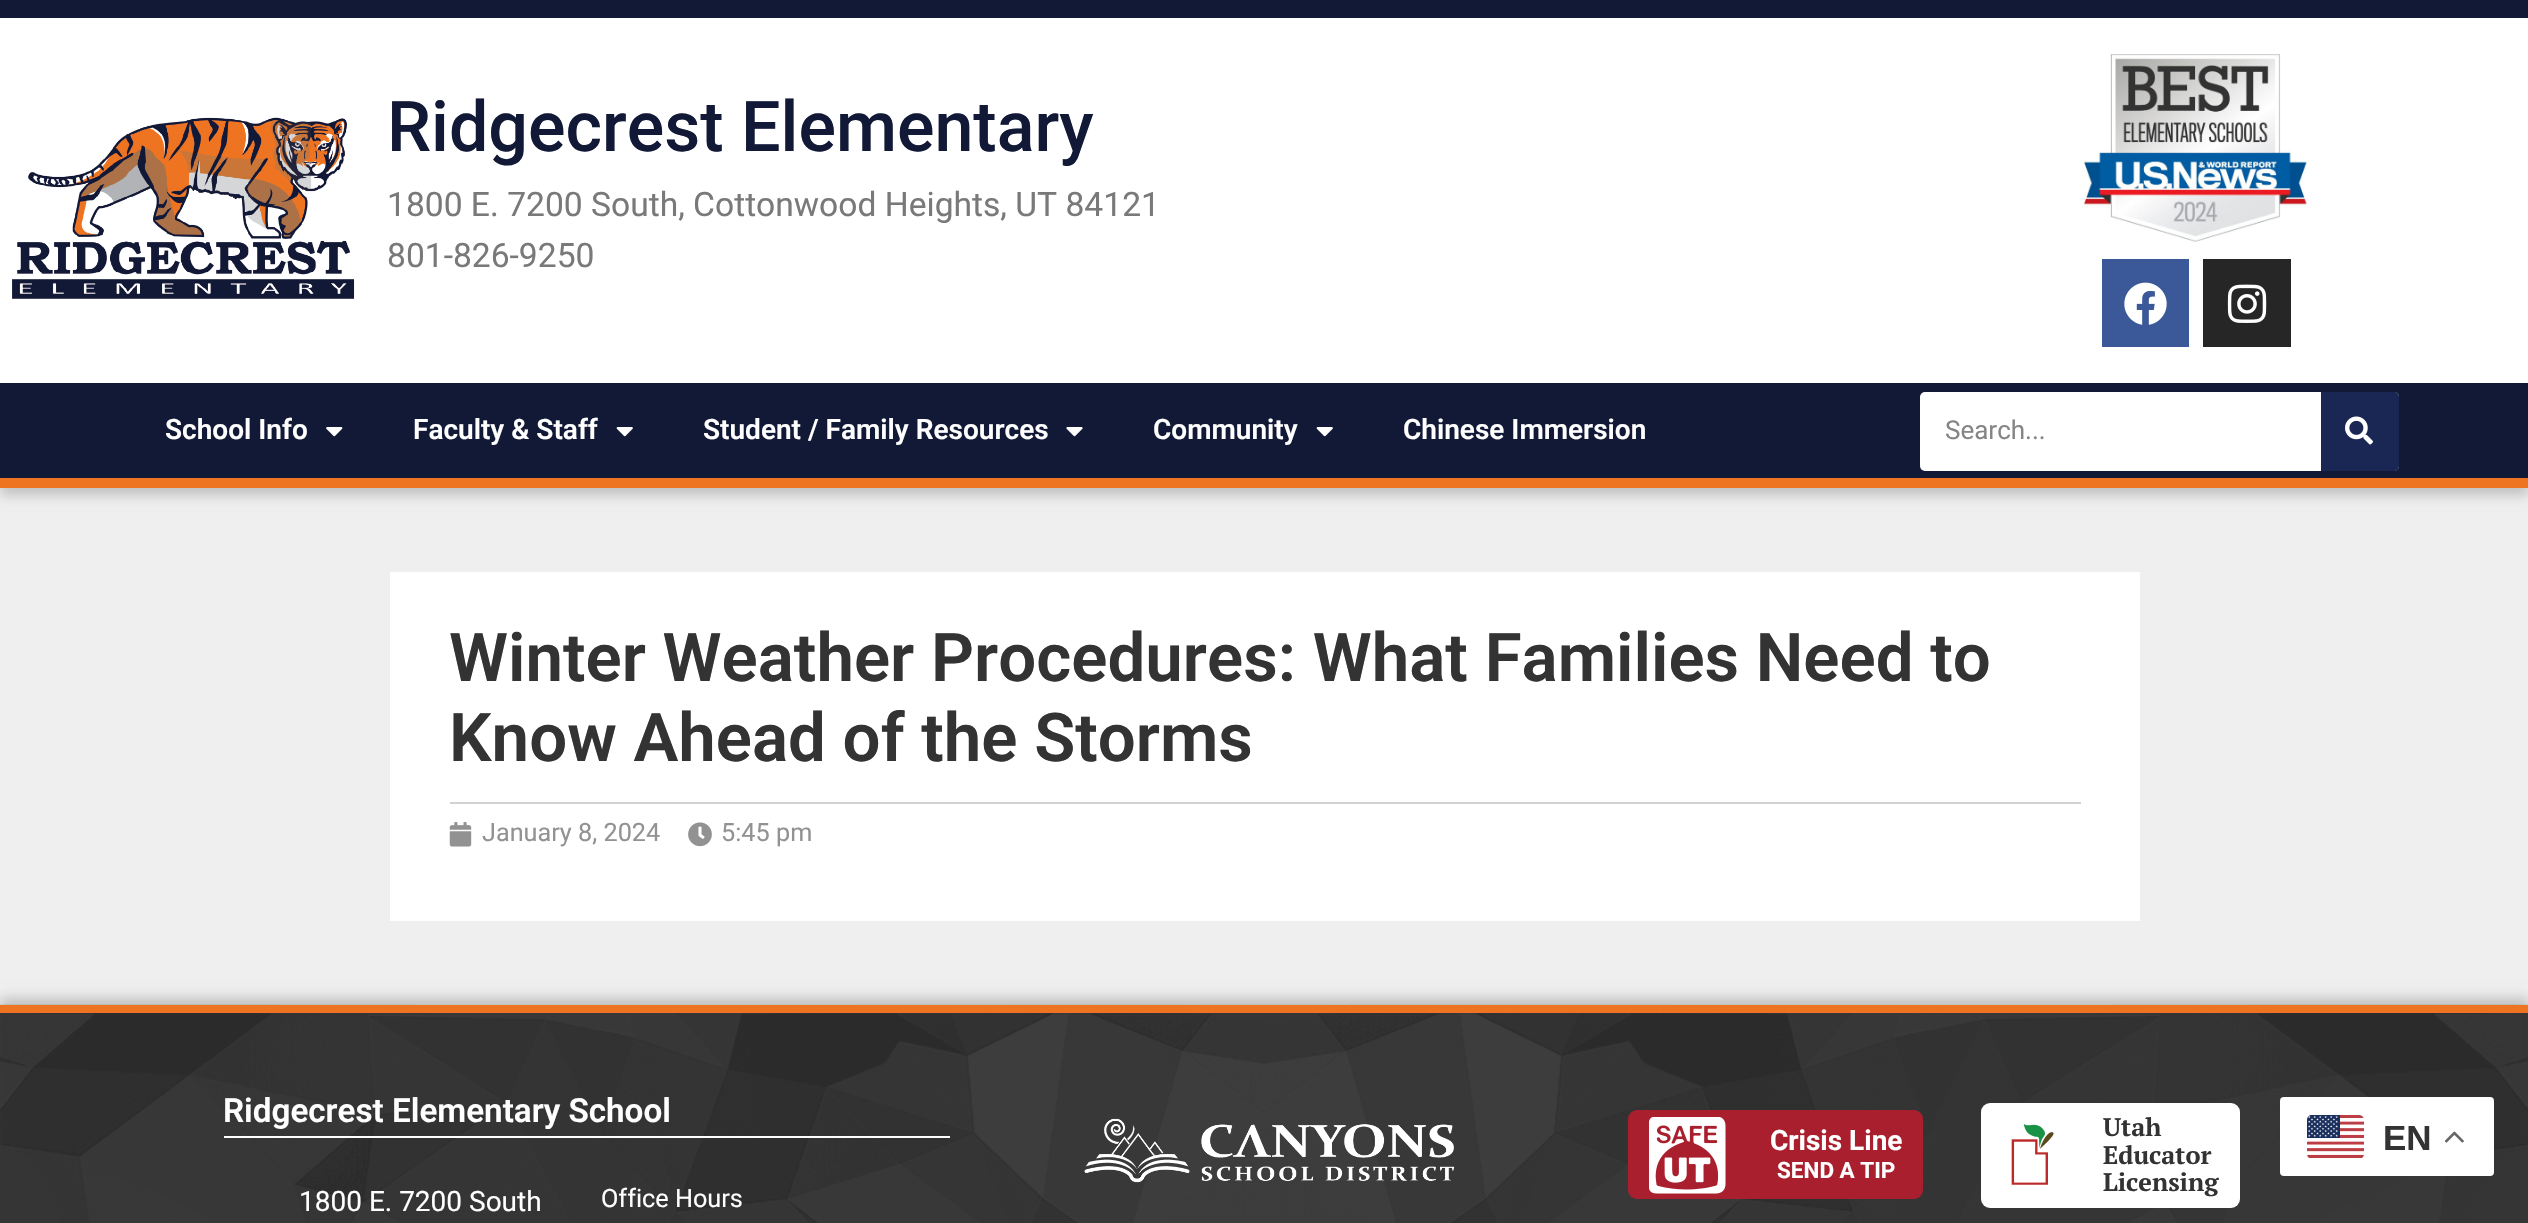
void draw(SkCanvas* canvas) {
  SkPaint paint;
  paint.setAntiAlias(true);
  auto face = [&](const char* family, int weight, float size, bool italic = false) {
    SkFontStyle style(weight, SkFontStyle::kNormal_Width,
      italic ? SkFontStyle::kItalic_Slant : SkFontStyle::kUpright_Slant);
    SkFont result(fontMgr->matchFamilyStyle(family, style), size);
    result.setSubpixel(true);
    return result;
  };
  auto paste = [&](const char* path, float x, float y, float w, float h) {
    auto image = SkImages::DeferredFromEncodedData(SkData::MakeFromFileName(path));
    canvas->drawImageRect(image, SkRect::MakeXYWH(x, y, w, h), SkSamplingOptions());
  };
  auto shape = [&](const char* data, bool evenOdd = false) {
    SkPath result = *SkParsePath::FromSVGString(data);
    if (evenOdd) result.setFillType(SkPathFillType::kEvenOdd);
    return result;
  };
  canvas->clear(0xffefefef);
  paint.setColor(0x33000000);
  paint.setMaskFilter(SkMaskFilter::MakeBlur(kNormal_SkBlurStyle, 6));
  canvas->drawRect(SkRect::MakeXYWH(0, 390, 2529, 105), paint);
  paint.setMaskFilter(nullptr);
  paint.setColor(0xffffffff);
  canvas->drawRect(SkRect::MakeXYWH(0, 18, 2528, 365), paint);
  paint.setColor(0xff111937);
  canvas->drawRect(SkRect::MakeXYWH(0, 0, 2528, 18), paint);
  paste("img/1.png", 12, 117, 343, 182);
  paste("img/2.png", 2084, 54, 223, 188);
  paint.setColor(0xff3b5998);
  canvas->drawRect(SkRect::MakeXYWH(2102, 259, 87, 88), paint);
  paste("img/3.png", 2124, 282, 43, 43);
  paint.setColor(0xff262626);
  canvas->drawRect(SkRect::MakeXYWH(2203, 259, 88, 88), paint);
  paste("img/4.png", 2227, 284, 40, 39);
  paint.setColor(0xff111937);
  canvas->drawRect(SkRect::MakeXYWH(0, 383, 2528, 95), paint);
  paint.setColor(0xffee7422);
  canvas->drawRect(SkRect::MakeXYWH(0, 478, 2528, 10), paint);
  paste("img/5.png", 326, 427, 17, 10);
  paste("img/6.png", 616, 427, 17, 10);
  paste("img/7.png", 1066, 427, 17, 10);
  paste("img/6.png", 1316, 427, 17, 10);
  paint.setColor(0xffffffff);
  canvas->drawRoundRect(SkRect::MakeXYWH(1920, 392, 479, 79), 5, 5, paint);
  paint.setColor(0xff1a2654);
  canvas->drawPath(shape("M2321 392H2394C2397 392 2399 394 2399 397V466C2399 469 2397 471 2394 471H2321Z"), paint);
  paste("img/8.png", 2345, 416, 28, 29);
  paint.setColor(0xffffffff);
  canvas->drawRect(SkRect::MakeXYWH(390, 572, 1750, 349), paint);
  paint.setColor(0xffd2d2d2);
  canvas->drawRect(SkRect::MakeXYWH(450, 802, 1631, 2), paint);
  paste("img/9.png", 449, 822, 23, 25);
  paste("img/10.png", 688, 822, 24, 25);
  paint.setColor(0x33000000);
  paint.setMaskFilter(SkMaskFilter::MakeBlur(kNormal_SkBlurStyle, 6));
  canvas->drawRect(SkRect::MakeXYWH(0, 998, 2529, 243), paint);
  paint.setMaskFilter(nullptr);
  paint.setColor(0xff2f2f2f);
  canvas->drawRect(SkRect::MakeXYWH(0, 1013, 2528, 210), paint);
  paste("img/11.png", 0, 1004, 2528, 219);
  paint.setColor(0xffee7422);
  canvas->drawRect(SkRect::MakeXYWH(0, 1005, 2528, 8), paint);
  paint.setColor(0xffffffff);
  canvas->drawRect(SkRect::MakeXYWH(224, 1136, 726, 2), paint);
  paste("img/12.png", 1084, 1118, 371, 65);
  paint.setColor(0xffaa1f2e);
  canvas->drawRoundRect(SkRect::MakeXYWH(1628, 1110, 295, 89), 9, 9, paint);
  paste("img/13.png", 1649, 1117, 77, 77);
  paint.setColor(0xffffffff);
  canvas->drawRoundRect(SkRect::MakeXYWH(1981, 1103, 259, 105), 9, 9, paint);
  paste("img/14.png", 2011, 1124, 43, 61);
  canvas->drawRoundRect(SkRect::MakeXYWH(2280, 1097, 214, 79), 4, 4, paint);
  paste("img/15.png", 2307, 1115, 57, 43);
  paste("img/16.png", 2445, 1131, 19, 12);
  auto f0 = face("Roboto", 500, 70);
  paint.setColor(0xff111937);
  canvas->drawString("Ridgecrest Elementary", 387, 151, f0, paint);
  auto f1 = face("Roboto", 400, 33.6f);
  paint.setColor(0xff797979);
  canvas->drawString("1800 E. 7200 South, Cottonwood Heights, UT 84121", 387, 216, f1, paint);
  canvas->drawString("801-826-9250", 387, 267, f1, paint);
  auto f2 = face("Roboto", 600, 28);
  paint.setColor(0xffffffff);
  {
    const struct { const char* s; float x, y; } items[] = {
      {"School Info", 165, 439},
      {"Faculty & Staff", 413, 439},
      {"Student / Family Resources", 703, 439},
      {"Community", 1153, 439},
      {"Chinese Immersion", 1403, 439},
    };
    for (auto [s, x, y] : items) {
      canvas->drawString(s, x, y, f2, paint);
    }
  }
  auto f3 = face("Roboto", 400, 26);
  paint.setColor(0xff858585);
  canvas->drawString("Search...", 1945, 439, f3, paint);
  auto f4 = face("Roboto", 600, 67.2f);
  paint.setColor(0xff333333);
  canvas->drawString("Winter Weather Procedures: What Families Need to", 449, 681, f4, paint);
  canvas->drawString("Know Ahead of the Storms", 449, 761, f4, paint);
  auto f5 = face("Roboto", 400, 25.25f);
  paint.setColor(0xff929292);
  canvas->drawString("January 8, 2024", 482, 841, f5, paint);
  canvas->drawString("5:45 pm", 721, 841, f5, paint);
  auto f6 = face("Roboto", 600, 33.25f);
  paint.setColor(0xffffffff);
  canvas->drawString("Ridgecrest Elementary School", 223, 1122, f6, paint);
  auto f7 = face("Roboto", 400, 28);
  canvas->drawString("1800 E. 7200 South", 299, 1211, f7, paint);
  canvas->drawString("Office Hours", 601, 1207, f5, paint);
  auto f8 = face("Roboto", 700, 28);
  canvas->drawString("Crisis Line", 1770, 1150, f8, paint);
  auto f9 = face("Roboto", 700, 22.5f);
  canvas->drawString("SEND A TIP", 1777, 1178, f9, paint);
  auto f10 = face("PT Serif", 700, 25.25f);
  paint.setColor(0xff333333);
  {
    const struct { const char* s; float x, y; } items[] = {
      {"Utah", 2103, 1136},
      {"Educator", 2103, 1164},
      {"Licensing", 2103, 1191},
    };
    for (auto [s, x, y] : items) {
      canvas->drawString(s, x, y, f10, paint);
    }
  }
  auto f11 = face("Liberation Sans", 700, 35);
  canvas->drawString("EN", 2383, 1150, f11, paint);
}
